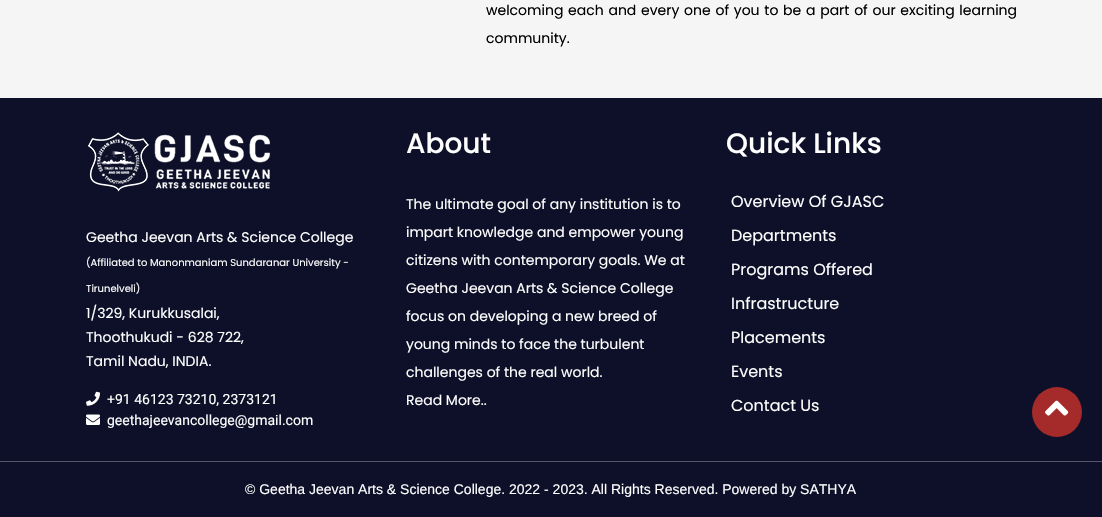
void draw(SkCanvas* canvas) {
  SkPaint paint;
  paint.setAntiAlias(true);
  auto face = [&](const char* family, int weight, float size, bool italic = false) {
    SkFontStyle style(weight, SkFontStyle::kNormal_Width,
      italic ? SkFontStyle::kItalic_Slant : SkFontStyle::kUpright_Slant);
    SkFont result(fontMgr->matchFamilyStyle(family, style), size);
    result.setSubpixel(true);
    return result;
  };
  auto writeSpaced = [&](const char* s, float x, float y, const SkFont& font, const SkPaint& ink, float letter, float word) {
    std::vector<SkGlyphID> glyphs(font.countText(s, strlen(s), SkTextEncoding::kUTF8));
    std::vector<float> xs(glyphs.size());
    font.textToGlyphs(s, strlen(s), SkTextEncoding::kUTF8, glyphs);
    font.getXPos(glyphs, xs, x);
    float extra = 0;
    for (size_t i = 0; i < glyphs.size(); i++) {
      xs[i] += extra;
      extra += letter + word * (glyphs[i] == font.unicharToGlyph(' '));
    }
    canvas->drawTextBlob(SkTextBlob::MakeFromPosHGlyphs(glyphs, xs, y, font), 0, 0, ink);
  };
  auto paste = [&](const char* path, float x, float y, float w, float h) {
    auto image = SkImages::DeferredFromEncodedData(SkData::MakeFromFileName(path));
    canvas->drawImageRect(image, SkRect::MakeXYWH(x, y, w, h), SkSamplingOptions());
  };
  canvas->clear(0xfff5f5f5);
  paint.setColor(0xff0d1028);
  canvas->drawRect(SkRect::MakeXYWH(0, 98, 1102, 419), paint);
  paste("img/1.png", 88, 132, 182, 60);
  paste("img/2.png", 86, 391, 14, 15);
  paste("img/3.png", 86, 414, 14, 11);
  paint.setColor(0xff565869);
  canvas->drawRect(SkRect::MakeXYWH(0, 461, 1102, 1), paint);
  paint.setColor(0xffa52a2a);
  canvas->drawCircle(1057, 412, 25, paint);
  paste("img/4.png", 1045, 400, 24, 16);
  auto f0 = face("Poppins", 400, 14);
  paint.setColor(0xff000000);
  writeSpaced("welcoming each and every one of you to be a part of our exciting learning", 486, 15, f0, paint, 0, 1);
  canvas->drawString("community.", 486, 43, f0, paint);
  paint.setColor(0xffffffff);
  canvas->drawString("Geetha Jeevan Arts & Science College", 86, 242, f0, paint);
  auto f1 = face("Poppins", 400, 10);
  canvas->drawString("(Affiliated to Manonmaniam Sundaranar University -", 86, 266, f1, paint);
  canvas->drawString("Tirunelveli)", 86, 292, f1, paint);
  {
    const struct { const char* s; float x, y; } items[] = {
      {"1/329, Kurukkusalai,", 86, 318},
      {"Thoothukudi - 628 722,", 86, 342},
      {"Tamil Nadu, INDIA.", 86, 366},
    };
    for (auto [s, x, y] : items) {
      canvas->drawString(s, x, y, f0, paint);
    }
  }
  auto f2 = face("Roboto", 400, 14);
  canvas->drawString("+91 46123 73210, 2373121", 107, 404, f2, paint);
  canvas->drawString("geethajeevancollege@gmail.com", 107, 425, f2, paint);
  auto f3 = face("Poppins", 500, 28);
  canvas->drawString("About", 406, 153, f3, paint);
  {
    const struct { const char* s; float x, y; } items[] = {
      {"The ultimate goal of any institution is to", 406, 209},
      {"impart knowledge and empower young", 406, 237},
      {"citizens with contemporary goals. We at", 406, 265},
      {"Geetha Jeevan Arts & Science College", 406, 293},
      {"focus on developing a new breed of", 406, 321},
      {"young minds to face the turbulent", 406, 349},
      {"challenges of the real world.", 406, 377},
      {"Read More..", 406, 405},
    };
    for (auto [s, x, y] : items) {
      canvas->drawString(s, x, y, f0, paint);
    }
  }
  canvas->drawString("Quick Links", 726, 153, f3, paint);
  auto f4 = face("Poppins", 400, 16);
  {
    const struct { const char* s; float x, y; } items[] = {
      {"Overview Of GJASC", 731, 207},
      {"Departments", 731, 241},
      {"Programs Offered", 731, 275},
      {"Infrastructure", 731, 309},
      {"Placements", 731, 343},
      {"Events", 731, 377},
      {"Contact Us", 731, 411},
    };
    for (auto [s, x, y] : items) {
      canvas->drawString(s, x, y, f4, paint);
    }
  }
  auto f5 = face("Liberation Sans", 400, 14);
  canvas->drawString("© Geetha Jeevan Arts & Science College. 2022 - 2023. All Rights Reserved. Powered by SATHYA", 245, 494, f5, paint);
}
